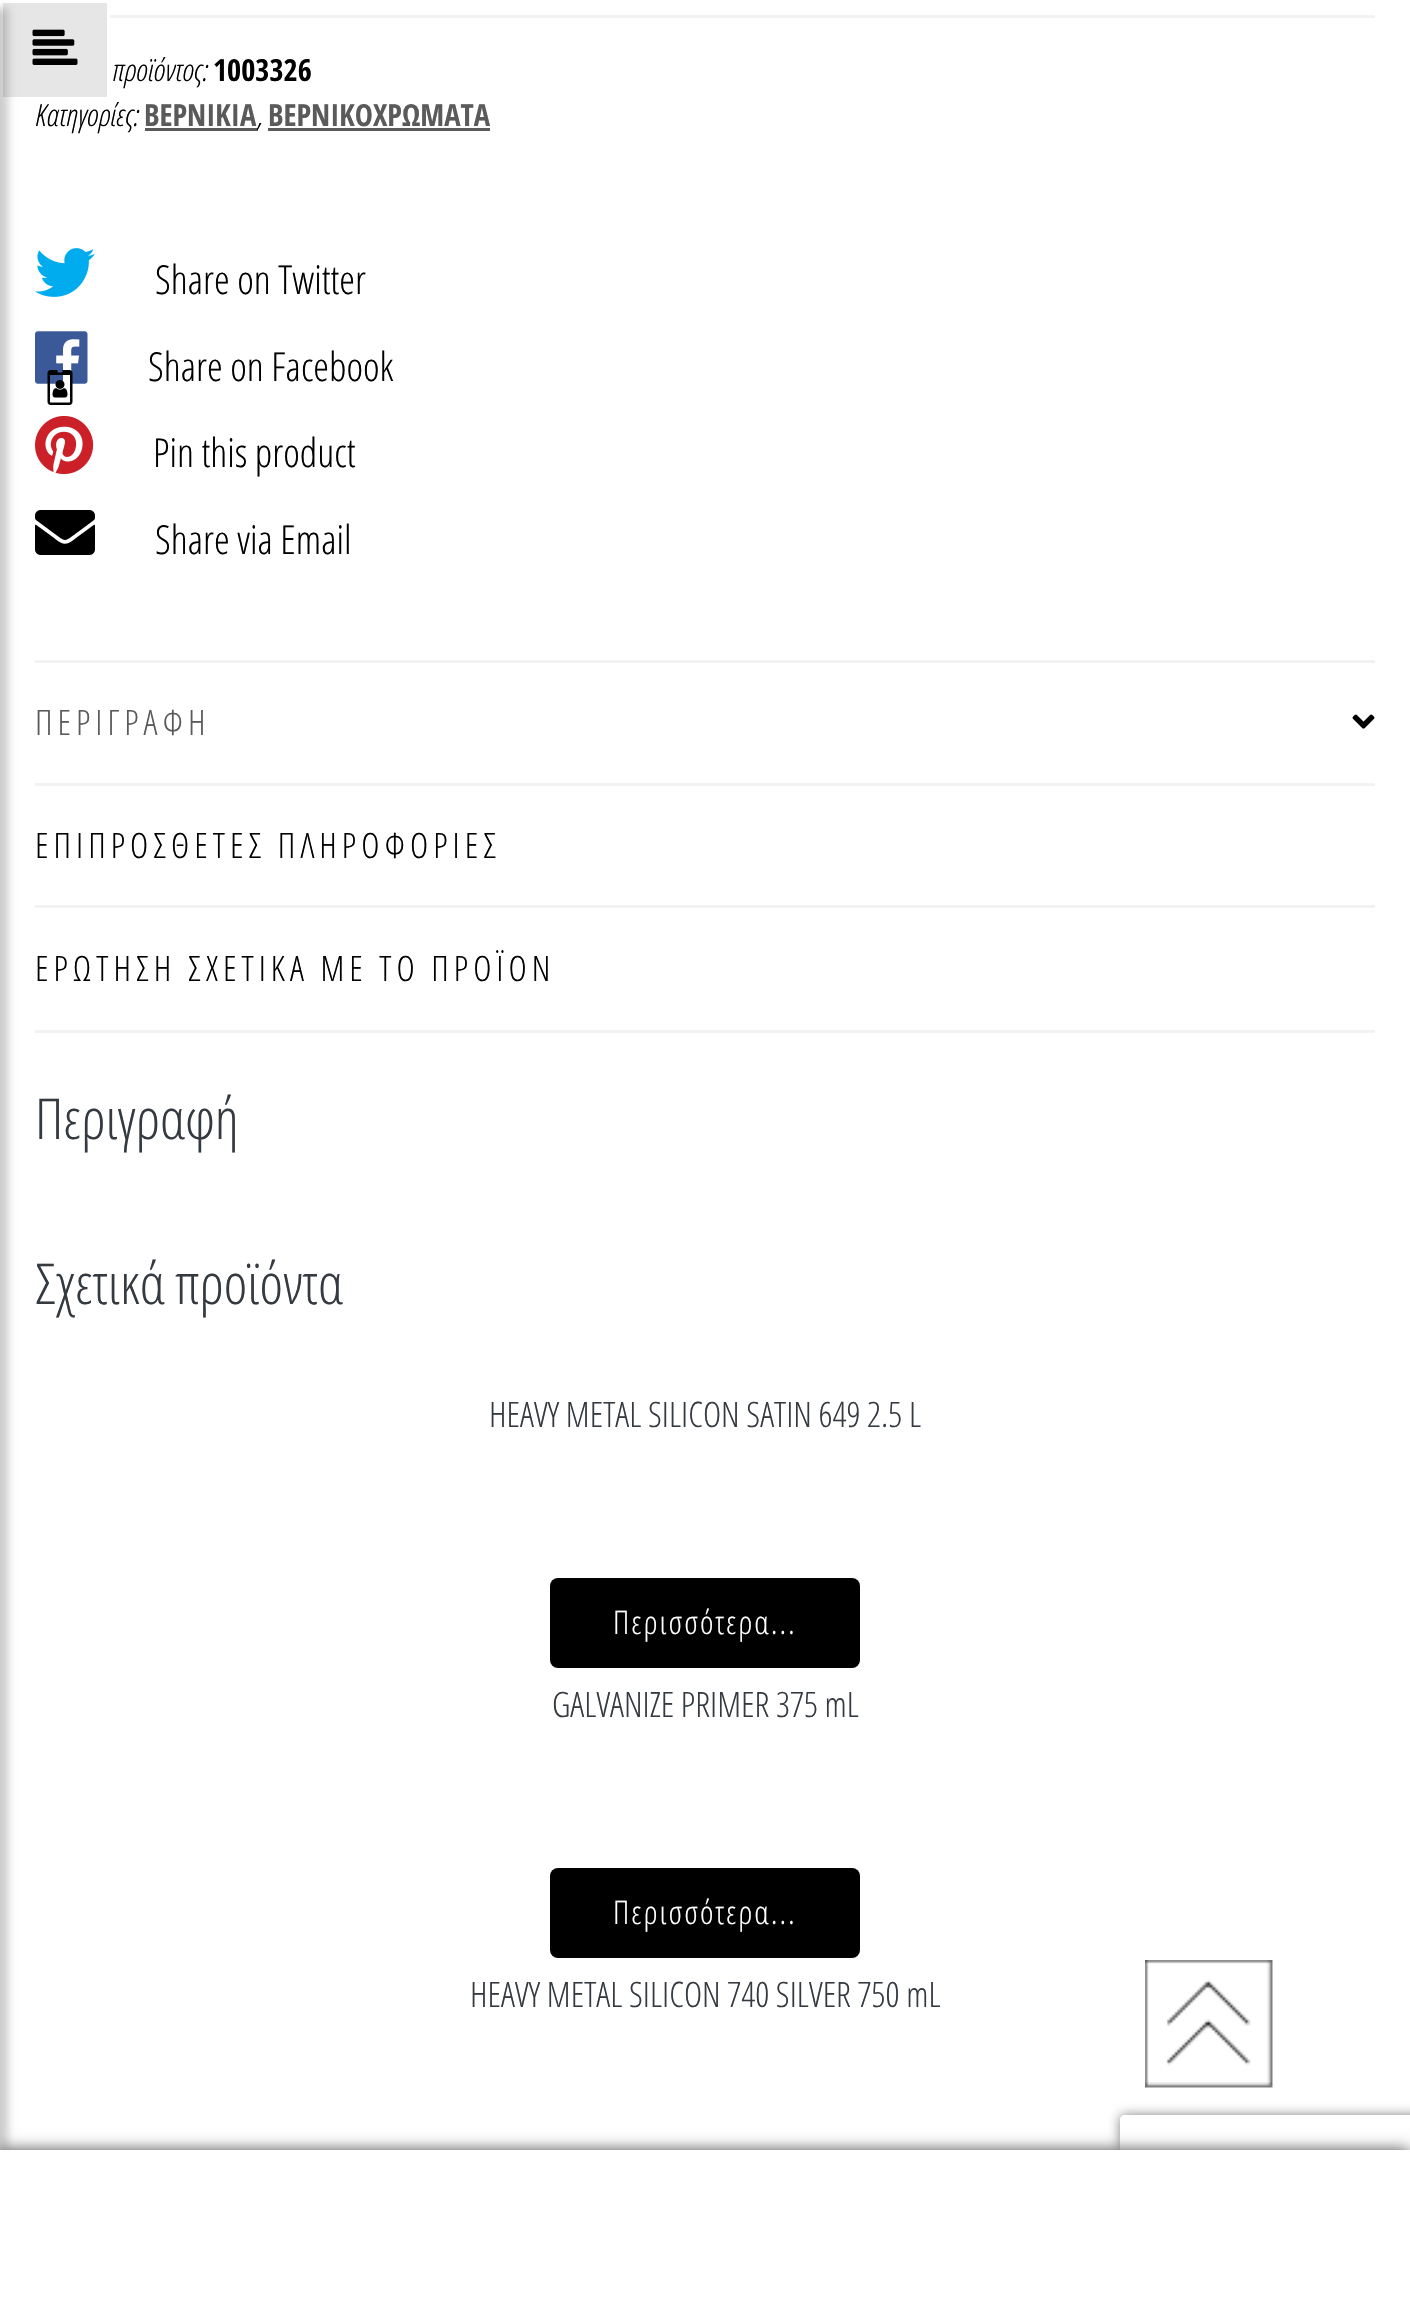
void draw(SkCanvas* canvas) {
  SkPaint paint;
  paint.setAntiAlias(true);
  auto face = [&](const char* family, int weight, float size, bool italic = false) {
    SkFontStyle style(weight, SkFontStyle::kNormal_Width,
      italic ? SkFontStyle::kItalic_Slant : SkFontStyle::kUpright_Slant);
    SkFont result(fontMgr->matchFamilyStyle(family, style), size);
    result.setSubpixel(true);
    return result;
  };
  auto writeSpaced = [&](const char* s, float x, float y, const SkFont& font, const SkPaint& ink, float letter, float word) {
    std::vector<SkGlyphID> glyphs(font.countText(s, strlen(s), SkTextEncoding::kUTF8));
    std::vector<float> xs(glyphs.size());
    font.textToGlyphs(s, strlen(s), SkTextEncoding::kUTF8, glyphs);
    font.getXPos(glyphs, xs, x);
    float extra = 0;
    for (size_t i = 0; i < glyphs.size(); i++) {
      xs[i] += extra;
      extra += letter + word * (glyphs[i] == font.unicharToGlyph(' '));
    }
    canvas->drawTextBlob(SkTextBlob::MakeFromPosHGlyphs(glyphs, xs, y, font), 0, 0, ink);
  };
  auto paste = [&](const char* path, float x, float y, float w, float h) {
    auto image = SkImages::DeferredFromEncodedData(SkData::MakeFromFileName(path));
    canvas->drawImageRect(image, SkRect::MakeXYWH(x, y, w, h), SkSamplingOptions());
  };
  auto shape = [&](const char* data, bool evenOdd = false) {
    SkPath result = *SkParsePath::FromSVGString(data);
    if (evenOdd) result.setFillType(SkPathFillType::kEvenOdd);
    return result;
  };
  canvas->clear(0xffffffff);
  paint.setColor(0xffe6e6e6);
  canvas->drawRect(SkRect::MakeXYWH(3, 3, 104, 94), paint);
  paint.setColor(0x33000000);
  paint.setMaskFilter(SkMaskFilter::MakeBlur(kNormal_SkBlurStyle, 4));
  canvas->drawRect(SkRect::MakeXYWH(-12, 8, 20, 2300), paint);
  paint.setMaskFilter(nullptr);
  paste("img/1.png", 32, 29, 46, 36);
  paste("img/4.png", 35, 331, 53, 53);
  paste("img/2.png", 47, 370, 26, 35);
  {
    const struct { float x, y, w, h; SkColor color; } items[] = {
      {110, 15, 1265, 3, 0xfff2f2f2},
      {145, 128, 113, 3, 0xff5a5a5a},
      {268, 128, 222, 3, 0xff5a5a5a},
    };
    for (auto [x, y, w, h, color] : items) {
      paint.setColor(color);
      canvas->drawRect(SkRect::MakeXYWH(x, y, w, h), paint);
    }
  }
  paste("img/3.png", 35, 248, 60, 49);
  paste("img/5.png", 35, 415, 59, 60);
  paste("img/6.png", 35, 510, 60, 45);
  paint.setColor(0xfff2f2f2);
  canvas->drawRect(SkRect::MakeXYWH(35, 660, 1340, 3), paint);
  canvas->drawRect(SkRect::MakeXYWH(35, 783, 1340, 3), paint);
  paste("img/7.png", 1352, 714, 23, 15);
  canvas->drawRect(SkRect::MakeXYWH(35, 905, 1340, 3), paint);
  canvas->drawRect(SkRect::MakeXYWH(35, 1030, 1340, 3), paint);
  paint.setColor(0xff000000);
  canvas->drawRoundRect(SkRect::MakeXYWH(550, 1578, 310, 90), 8, 8, paint);
  canvas->drawRoundRect(SkRect::MakeXYWH(550, 1868, 310, 90), 8, 8, paint);
  paint.setColor(0xb3000000);
  paint.setMaskFilter(SkMaskFilter::MakeBlur(kNormal_SkBlurStyle, 7.5f));
  canvas->drawRect(SkRect::MakeXYWH(0, 2150, 1410, 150), paint);
  paint.setMaskFilter(nullptr);
  canvas->save();
  canvas->clipPath(shape("M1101 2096H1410V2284H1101ZM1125 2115H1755C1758 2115 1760 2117 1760 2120V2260C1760 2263 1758 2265 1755 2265H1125C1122 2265 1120 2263 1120 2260V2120C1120 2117 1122 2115 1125 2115Z", true), true);
  paint.setColor(0xff808080);
  paint.setMaskFilter(SkMaskFilter::MakeBlur(kNormal_SkBlurStyle, 6));
  canvas->drawRoundRect(SkRect::MakeXYWH(1120, 2115, 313, 150), 5, 5, paint);
  paint.setMaskFilter(nullptr);
  canvas->restore();
  paint.setColor(0xffffffff);
  canvas->drawRect(SkRect::MakeXYWH(0, 2150, 1410, 3), paint);
  canvas->drawRect(SkRect::MakeXYWH(0, 2153, 1410, 145), paint);
  paste("img/8.png", 1145, 1960, 128, 128);
  auto f0 = face("Open Sans Condensed", 300, 30.5f, true);
  paint.setColor(0xff000000);
  canvas->drawString("προϊόντος:", 112, 81, f0, paint);
  auto f1 = face("Open Sans Condensed", 700, 30.5f);
  canvas->drawString("1003326", 213, 81, f1, paint);
  canvas->drawString("Κατηγορίες:", 35, 126, f0, paint);
  paint.setColor(0xff5a5a5a);
  canvas->drawString("ΒΕΡΝΙΚΙΑ", 144, 126, f1, paint);
  paint.setColor(0xff000000);
  canvas->drawString(",", 257, 126, f0, paint);
  paint.setColor(0xff5a5a5a);
  canvas->drawString("ΒΕΡΝΙΚΟΧΡΩΜΑΤΑ", 268, 126, f1, paint);
  auto f2 = face("Open Sans Condensed", 300, 40);
  paint.setColor(0xff000000);
  {
    const struct { const char* s; float x, y; } items[] = {
      {"Share on Twitter", 155, 294},
      {"Share on Facebook", 148, 381},
      {"Pin this product", 153, 467},
      {"Share via Email", 155, 554},
    };
    for (auto [s, x, y] : items) {
      canvas->drawString(s, x, y, f2, paint);
    }
  }
  auto f3 = face("Open Sans Condensed", 300, 35);
  paint.setColor(0xff5a5a5a);
  writeSpaced("ΠΕΡΙΓΡΑΦΗ", 35, 735, f3, paint, 5, 0);
  paint.setColor(0xff000000);
  writeSpaced("ΕΠΙΠΡΟΣΘΕΤΕΣ ΠΛΗΡΟΦΟΡΙΕΣ", 35, 858, f3, paint, 5, 0);
  writeSpaced("ΕΡΩΤΗΣΗ ΣΧΕΤΙΚΑ ΜΕ ΤΟ ΠΡΟΪΟΝ", 35, 981, f3, paint, 5, 0);
  auto f4 = face("Open Sans Condensed", 300, 56.5f);
  paint.setColor(0xff343a40);
  canvas->drawString("Περιγραφή", 35, 1139, f4, paint);
  canvas->drawString("Σχετικά προϊόντα", 35, 1304, f4, paint);
  canvas->drawString("HEAVY METAL SILICON SATIN 649 2.5 L", 489, 1427, f3, paint);
  auto f5 = face("Open Sans Condensed", 300, 32.5f);
  paint.setColor(0xffffffff);
  writeSpaced("Περισσότερα...", 613, 1634, f5, paint, 2, 0);
  paint.setColor(0xff343a40);
  canvas->drawString("GALVANIZE PRIMER 375 mL", 552, 1717, f3, paint);
  paint.setColor(0xffffffff);
  writeSpaced("Περισσότερα...", 613, 1924, f5, paint, 2, 0);
  paint.setColor(0xff343a40);
  canvas->drawString("HEAVY METAL SILICON 740 SILVER 750 mL", 470, 2007, f3, paint);
}
